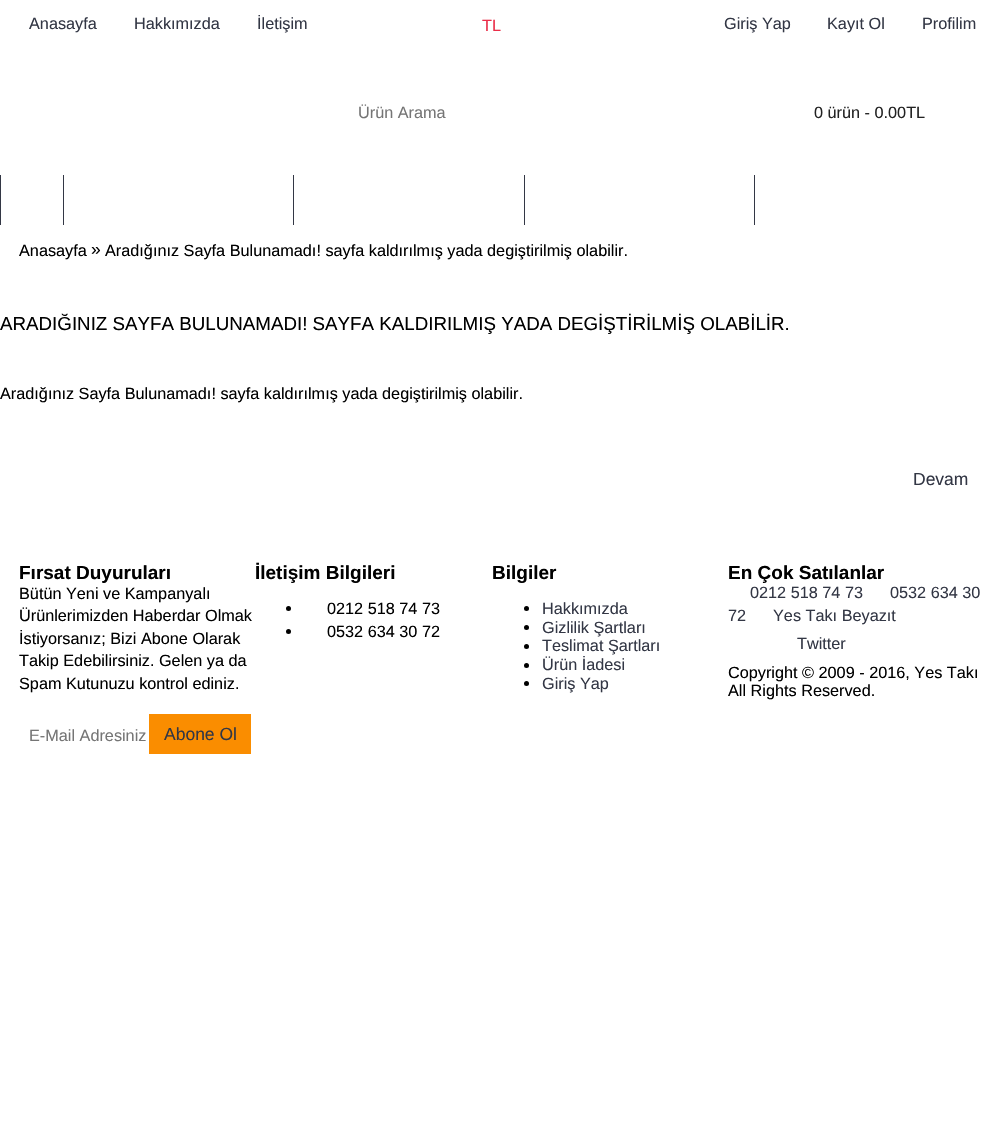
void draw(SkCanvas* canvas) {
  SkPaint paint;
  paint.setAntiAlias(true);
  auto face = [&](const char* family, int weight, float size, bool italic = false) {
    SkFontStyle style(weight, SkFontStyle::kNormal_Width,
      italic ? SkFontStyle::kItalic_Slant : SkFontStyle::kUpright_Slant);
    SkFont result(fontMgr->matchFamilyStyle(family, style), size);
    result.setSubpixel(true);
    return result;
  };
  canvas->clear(0xffffffff);
  {
    const struct { float x, y, w, h; SkColor color; } items[] = {
      {0, 175, 1, 50, 0xff333745},
      {63, 175, 1, 50, 0xff333745},
      {293, 175, 1, 50, 0xff333745},
      {524, 175, 1, 50, 0xff333745},
      {754, 175, 1, 50, 0xff333745},
      {149, 714, 102, 40, 0xfffa8d00},
    };
    for (auto [x, y, w, h, color] : items) {
      paint.setColor(color);
      canvas->drawRect(SkRect::MakeXYWH(x, y, w, h), paint);
    }
  }
  paint.setColor(0xff000000);
  canvas->drawCircle(288.5f, 608.5f, 2.5f, paint);
  canvas->drawCircle(288.5f, 631.5f, 2.5f, paint);
  canvas->drawCircle(526.5f, 608.5f, 2.5f, paint);
  canvas->drawCircle(526.5f, 627.5f, 2.5f, paint);
  canvas->drawCircle(526.5f, 646.5f, 2.5f, paint);
  canvas->drawCircle(526.5f, 665.5f, 2.5f, paint);
  canvas->drawCircle(526.5f, 683.5f, 2.5f, paint);
  auto f0 = face("Liberation Sans", 400, 16.25f);
  paint.setColor(0xff333745);
  {
    const struct { const char* s; float x, y; } items[] = {
      {"Anasayfa", 29, 29},
      {"Hakkımızda", 134, 29},
      {"İletişim", 257, 29},
    };
    for (auto [s, x, y] : items) {
      canvas->drawString(s, x, y, f0, paint);
    }
  }
  paint.setColor(0xffea2e49);
  canvas->drawString("TL", 482, 31, f0, paint);
  paint.setColor(0xff333745);
  {
    const struct { const char* s; float x, y; } items[] = {
      {"Giriş Yap", 724, 29},
      {"Kayıt Ol", 827, 29},
      {"Profilim", 922, 29},
    };
    for (auto [s, x, y] : items) {
      canvas->drawString(s, x, y, f0, paint);
    }
  }
  paint.setColor(0xff757575);
  canvas->drawString("Ürün Arama", 358, 118, f0, paint);
  paint.setColor(0xff222222);
  canvas->drawString("0 ürün - 0.00TL", 814, 118, f0, paint);
  paint.setColor(0xff000000);
  canvas->drawString("Anasayfa", 19, 256, f0, paint);
  auto f1 = face("Liberation Sans", 400, 17.5f);
  canvas->drawString("»", 91, 255, f1, paint);
  canvas->drawString("Aradığınız Sayfa Bulunamadı! sayfa kaldırılmış yada degiştirilmiş olabilir.", 105, 256, f0, paint);
  auto f2 = face("Liberation Sans", 400, 18.75f);
  canvas->drawString("ARADIĞINIZ SAYFA BULUNAMADI! SAYFA KALDIRILMIŞ YADA DEGİŞTİRİLMİŞ OLABİLİR.", 0, 330, f2, paint);
  canvas->drawString("Aradığınız Sayfa Bulunamadı! sayfa kaldırılmış yada degiştirilmiş olabilir.", 0, 399, f0, paint);
  paint.setColor(0xff333745);
  canvas->drawString("Devam", 913, 485, f1, paint);
  auto f3 = face("Liberation Sans", 700, 19);
  paint.setColor(0xff000000);
  canvas->drawString("Fırsat Duyuruları", 19, 579, f3, paint);
  {
    const struct { const char* s; float x, y; } items[] = {
      {"Bütün Yeni ve Kampanyalı", 19, 599},
      {"Ürünlerimizden Haberdar Olmak", 19, 621},
      {"İstiyorsanız; Bizi Abone Olarak", 19, 644},
      {"Takip Edebilirsiniz. Gelen ya da", 19, 666},
      {"Spam Kutunuzu kontrol ediniz.", 19, 689},
    };
    for (auto [s, x, y] : items) {
      canvas->drawString(s, x, y, f0, paint);
    }
  }
  paint.setColor(0xff757575);
  canvas->drawString("E-Mail Adresiniz", 29, 741, f0, paint);
  paint.setColor(0xff333745);
  canvas->drawString("Abone Ol", 164, 740, f1, paint);
  paint.setColor(0xff000000);
  canvas->drawString("İletişim Bilgileri", 255, 579, f3, paint);
  canvas->drawString("0212 518 74 73", 327, 614, f0, paint);
  canvas->drawString("0532 634 30 72", 327, 637, f0, paint);
  canvas->drawString("Bilgiler", 492, 579, f3, paint);
  paint.setColor(0xff333745);
  {
    const struct { const char* s; float x, y; } items[] = {
      {"Hakkımızda", 542, 614},
      {"Gizlilik Şartları", 542, 633},
      {"Teslimat Şartları", 542, 651},
      {"Ürün İadesi", 542, 670},
      {"Giriş Yap", 542, 689},
    };
    for (auto [s, x, y] : items) {
      canvas->drawString(s, x, y, f0, paint);
    }
  }
  paint.setColor(0xff000000);
  canvas->drawString("En Çok Satılanlar", 728, 579, f3, paint);
  paint.setColor(0xff333745);
  {
    const struct { const char* s; float x, y; } items[] = {
      {"0212 518 74 73", 750, 598},
      {"0532 634 30", 890, 598},
      {"72", 728, 621},
      {"Yes Takı Beyazıt", 773, 621},
      {"Twitter", 797, 649},
    };
    for (auto [s, x, y] : items) {
      canvas->drawString(s, x, y, f0, paint);
    }
  }
  paint.setColor(0xff000000);
  canvas->drawString("Copyright © 2009 - 2016, Yes Takı", 728, 678, f0, paint);
  canvas->drawString("All Rights Reserved.", 728, 696, f0, paint);
}
